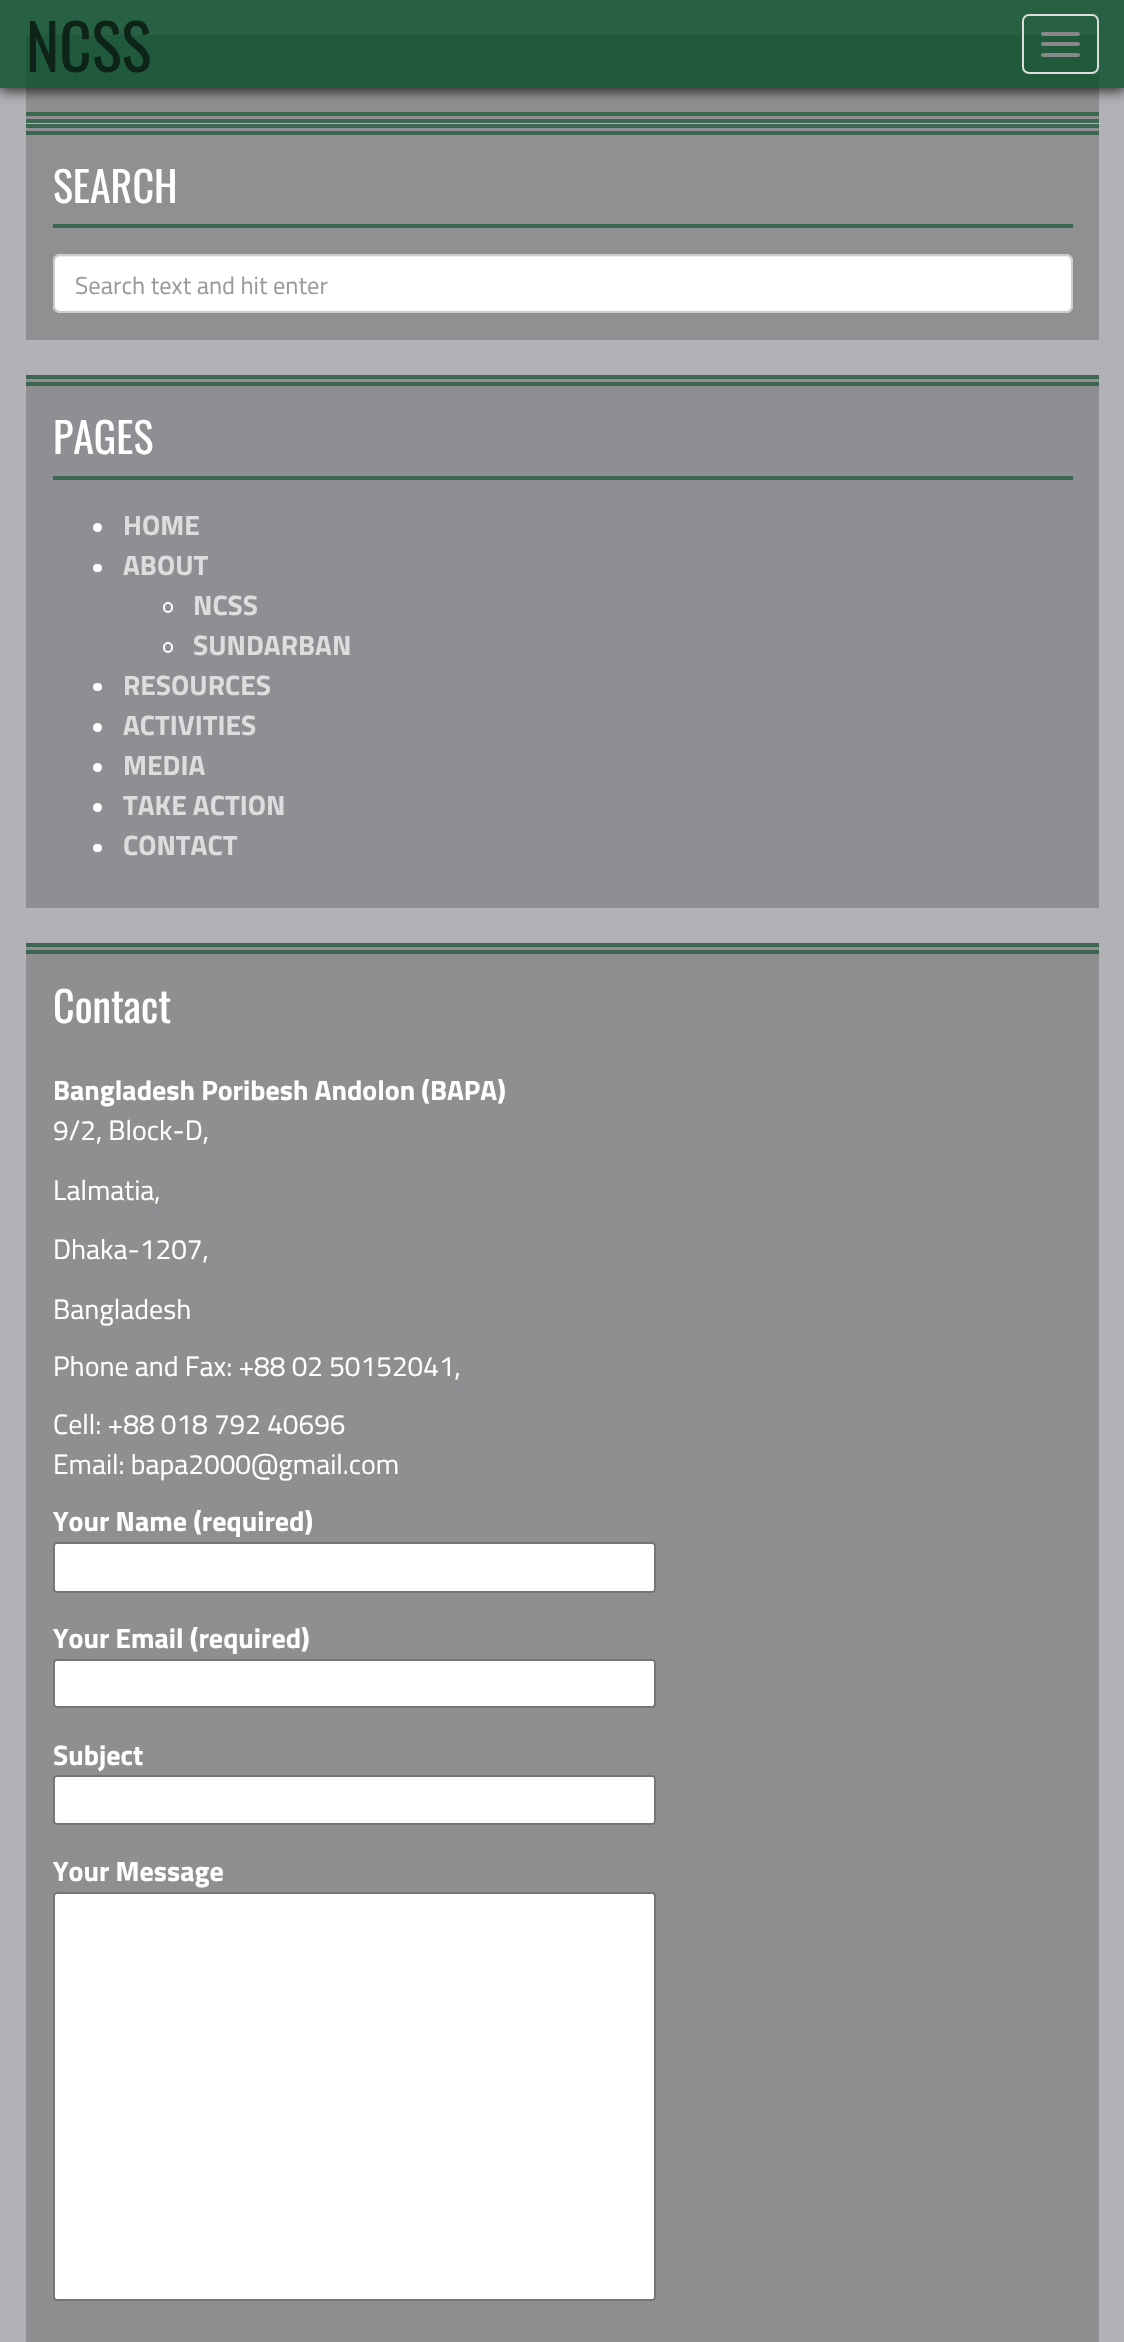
void draw(SkCanvas* canvas) {
  SkPaint paint;
  paint.setAntiAlias(true);
  auto face = [&](const char* family, int weight, float size, bool italic = false) {
    SkFontStyle style(weight, SkFontStyle::kNormal_Width,
      italic ? SkFontStyle::kItalic_Slant : SkFontStyle::kUpright_Slant);
    SkFont result(fontMgr->matchFamilyStyle(family, style), size);
    result.setSubpixel(true);
    return result;
  };
  auto shape = [&](const char* data, bool evenOdd = false) {
    SkPath result = *SkParsePath::FromSVGString(data);
    if (evenOdd) result.setFillType(SkPathFillType::kEvenOdd);
    return result;
  };
  canvas->clear(0xffb2b1b6);
  paint.setColor(0xff909092);
  canvas->drawRect(SkRect::MakeXYWH(26, 35, 1073, 84), paint);
  canvas->save();
  canvas->clipPath(shape("M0 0H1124V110H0ZM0 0H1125V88H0Z", true), true);
  paint.setColor(0xbf000000);
  paint.setMaskFilter(SkMaskFilter::MakeBlur(kNormal_SkBlurStyle, 6));
  canvas->drawRect(SkRect::MakeXYWH(0, 4, 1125, 87), paint);
  paint.setMaskFilter(nullptr);
  canvas->restore();
  paint.setColor(0xcc044b26);
  canvas->drawRect(SkRect::MakeXYWH(0, 0, 1124, 88), paint);
  paint.setStroke(true);
  paint.setStrokeWidth(2);
  paint.setColor(0xffdddddd);
  canvas->drawRoundRect(SkRect::MakeXYWH(1023, 15, 75, 58), 6, 6, paint);
  paint.setStroke(false);
  paint.setColor(0xff888888);
  canvas->drawRoundRect(SkRect::MakeXYWH(1041, 32, 39, 4), 2, 2, paint);
  canvas->drawRoundRect(SkRect::MakeXYWH(1041, 42, 39, 4), 2, 2, paint);
  canvas->drawRoundRect(SkRect::MakeXYWH(1041, 53, 39, 4), 2, 2, paint);
  {
    const struct { float x, y, w, h; SkColor color; } items[] = {
      {26, 112, 1073, 4, 0xff3c6751},
      {26, 119, 1073, 4, 0xff3c6751},
      {26, 128, 1073, 212, 0xff908f92},
      {26, 124, 1073, 4, 0xff3c6651},
      {26, 131, 1073, 4, 0xff3c6651},
      {53, 224, 1020, 4, 0xff3c6651},
    };
    for (auto [x, y, w, h, color] : items) {
      paint.setColor(color);
      canvas->drawRect(SkRect::MakeXYWH(x, y, w, h), paint);
    }
  }
  paint.setColor(0xffffffff);
  canvas->drawRoundRect(SkRect::MakeXYWH(53, 254, 1020, 59), 7, 7, paint);
  paint.setColor(0xffececec);
  canvas->drawPath(shape("M60 257H1066C1069 257 1071 260 1071 262C1071 259 1069 256 1066 256H59C56 256 54 259 54 262C54 260 57 257 60 257Z"), paint);
  paint.setStroke(true);
  paint.setColor(0xffcccccc);
  canvas->drawRoundRect(SkRect::MakeXYWH(54, 255, 1018, 57), 6, 6, paint);
  paint.setStroke(false);
  {
    const struct { float x, y, w, h; SkColor color; } items[] = {
      {26, 379, 1073, 529, 0xff8f8f93},
      {26, 375, 1073, 4, 0xff3c6652},
      {26, 382, 1073, 4, 0xff3c6652},
      {53, 476, 1020, 4, 0xff3c6652},
    };
    for (auto [x, y, w, h, color] : items) {
      paint.setColor(color);
      canvas->drawRect(SkRect::MakeXYWH(x, y, w, h), paint);
    }
  }
  paint.setColor(0xffffffff);
  canvas->drawCircle(97.5f, 527.5f, 4.5f, paint);
  canvas->drawRoundRect(SkRect::MakeXYWH(93, 564, 9, 8), 4, 4, paint);
  paint.setStroke(true);
  canvas->drawRoundRect(SkRect::MakeXYWH(164, 603, 8, 9), 4, 4, paint);
  canvas->drawRoundRect(SkRect::MakeXYWH(164, 643, 8, 9), 4, 4, paint);
  paint.setStroke(false);
  canvas->drawRoundRect(SkRect::MakeXYWH(93, 683, 9, 8), 4, 4, paint);
  canvas->drawCircle(97.5f, 727.5f, 4.5f, paint);
  canvas->drawCircle(97.5f, 767.5f, 4.5f, paint);
  canvas->drawCircle(97.5f, 807.5f, 4.5f, paint);
  canvas->drawRoundRect(SkRect::MakeXYWH(93, 844, 9, 8), 4, 4, paint);
  {
    const struct { float x, y, w, h; SkColor color; } items[] = {
      {26, 947, 1073, 1395, 0xff8f8f91},
      {26, 943, 1073, 4, 0xff3c6651},
      {26, 950, 1073, 4, 0xff3c6651},
    };
    for (auto [x, y, w, h, color] : items) {
      paint.setColor(color);
      canvas->drawRect(SkRect::MakeXYWH(x, y, w, h), paint);
    }
  }
  paint.setColor(0xffffffff);
  canvas->drawRoundRect(SkRect::MakeXYWH(54, 1543, 601, 49), 3, 3, paint);
  paint.setStroke(true);
  paint.setColor(0xff767676);
  canvas->drawRoundRect(SkRect::MakeXYWH(54, 1543, 601, 49), 3, 3, paint);
  paint.setStroke(false);
  paint.setColor(0xffffffff);
  canvas->drawRoundRect(SkRect::MakeXYWH(54, 1660, 601, 47), 3, 3, paint);
  paint.setStroke(true);
  paint.setColor(0xff767676);
  canvas->drawRoundRect(SkRect::MakeXYWH(54, 1660, 601, 47), 3, 3, paint);
  paint.setStroke(false);
  paint.setColor(0xffffffff);
  canvas->drawRoundRect(SkRect::MakeXYWH(54, 1776, 601, 48), 3, 3, paint);
  paint.setStroke(true);
  paint.setColor(0xff767676);
  canvas->drawRoundRect(SkRect::MakeXYWH(54, 1776, 601, 48), 3, 3, paint);
  paint.setStroke(false);
  paint.setColor(0xffffffff);
  canvas->drawRoundRect(SkRect::MakeXYWH(54, 1893, 601, 407), 3, 3, paint);
  paint.setStroke(true);
  paint.setColor(0xff767676);
  canvas->drawRoundRect(SkRect::MakeXYWH(54, 1893, 601, 407), 3, 3, paint);
  auto f0 = face("Oswald", 400, 63);
  paint.setStroke(false);
  paint.setColor(0xff0e2419);
  canvas->drawString("NCSS", 26, 72, f0, paint);
  auto f1 = face("Oswald", 400, 42);
  paint.setColor(0xffffffff);
  canvas->drawString("SEARCH", 53, 203, f1, paint);
  auto f2 = face("Titillium Web", 400, 24.5f);
  paint.setColor(0xff999999);
  canvas->drawString("Search text and hit enter", 75, 294, f2, paint);
  paint.setColor(0xffffffff);
  canvas->drawString("PAGES", 53, 454, f1, paint);
  auto f3 = face("Titillium Web", 700, 28);
  paint.setColor(0xffdddddd);
  {
    const struct { const char* s; float x, y; } items[] = {
      {"HOME", 123, 535},
      {"ABOUT", 123, 575},
      {"NCSS", 193, 615},
      {"SUNDARBAN", 193, 655},
      {"RESOURCES", 123, 695},
      {"ACTIVITIES", 123, 735},
      {"MEDIA", 123, 775},
      {"TAKE ACTION", 123, 815},
      {"CONTACT", 123, 855},
    };
    for (auto [s, x, y] : items) {
      canvas->drawString(s, x, y, f3, paint);
    }
  }
  paint.setColor(0xffffffff);
  canvas->drawString("Contact", 53, 1023, f1, paint);
  canvas->drawString("Bangladesh Poribesh Andolon (BAPA)", 53, 1100, f3, paint);
  auto f4 = face("Titillium Web", 400, 28);
  {
    const struct { const char* s; float x, y; } items[] = {
      {"9/2, Block-D,", 53, 1140},
      {"Lalmatia,", 53, 1200},
      {"Dhaka-1207,", 53, 1259},
      {"Bangladesh", 53, 1319},
      {"Phone and Fax: +88 02 50152041,", 53, 1376},
      {"Cell: +88 018 792 40696", 53, 1434},
      {"Email: bapa2000@gmail.com", 53, 1474},
    };
    for (auto [s, x, y] : items) {
      canvas->drawString(s, x, y, f4, paint);
    }
  }
  {
    const struct { const char* s; float x, y; } items[] = {
      {"Your Name (required)", 53, 1531},
      {"Your Email (required)", 53, 1648},
      {"Subject", 53, 1765},
      {"Your Message", 53, 1881},
    };
    for (auto [s, x, y] : items) {
      canvas->drawString(s, x, y, f3, paint);
    }
  }
}
